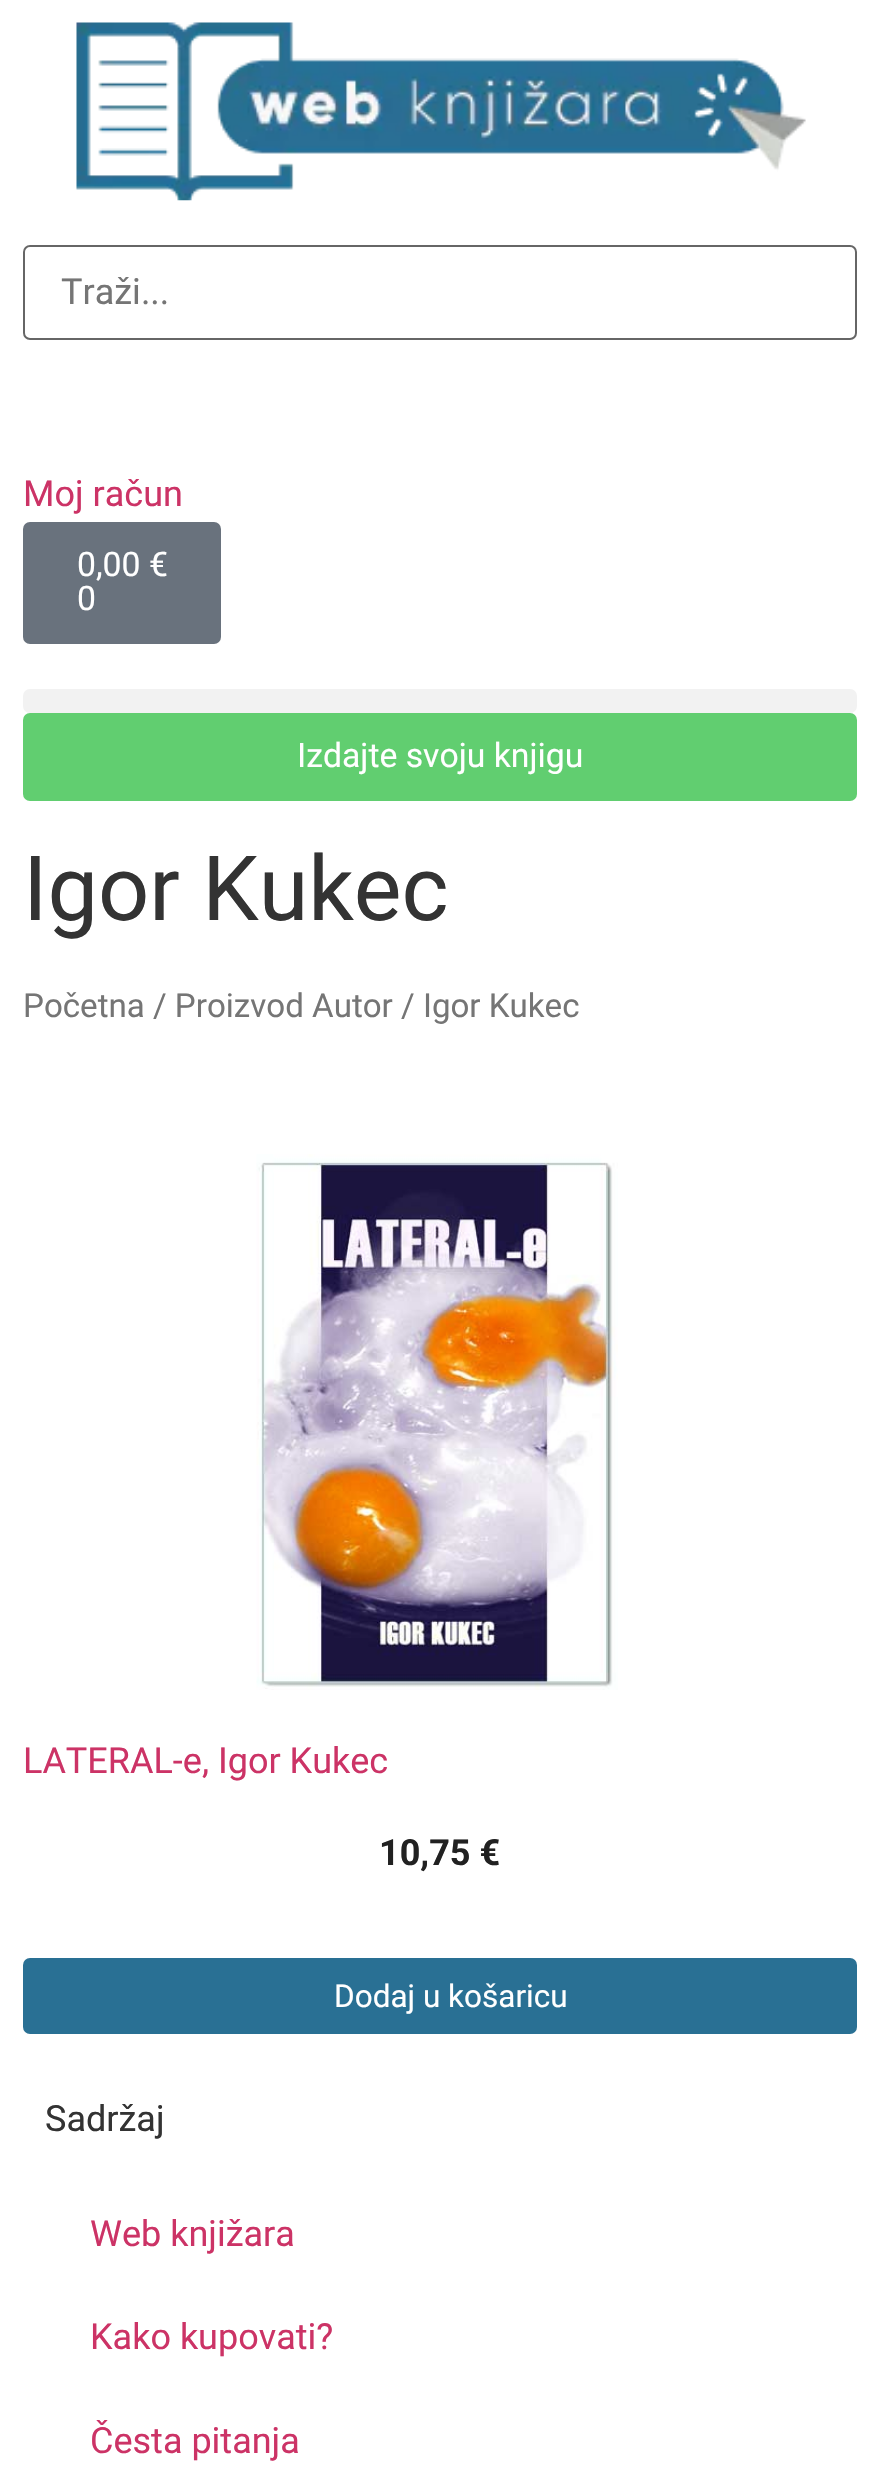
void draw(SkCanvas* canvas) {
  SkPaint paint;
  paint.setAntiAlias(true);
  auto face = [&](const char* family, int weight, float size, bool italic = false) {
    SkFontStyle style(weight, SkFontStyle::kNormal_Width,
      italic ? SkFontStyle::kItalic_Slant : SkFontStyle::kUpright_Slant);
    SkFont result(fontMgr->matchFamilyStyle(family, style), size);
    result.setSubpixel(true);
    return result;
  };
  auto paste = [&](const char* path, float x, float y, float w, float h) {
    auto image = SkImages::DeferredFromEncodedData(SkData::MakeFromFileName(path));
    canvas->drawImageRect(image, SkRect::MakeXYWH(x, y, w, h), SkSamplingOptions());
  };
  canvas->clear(0xffffffff);
  paste("img/1.png", 76, 22, 730, 179);
  paint.setStroke(true);
  paint.setStrokeWidth(2);
  paint.setColor(0xff666666);
  canvas->drawRoundRect(SkRect::MakeXYWH(24, 246, 832, 93), 6, 6, paint);
  paint.setStroke(false);
  paint.setColor(0xff69727d);
  canvas->drawRoundRect(SkRect::MakeXYWH(23, 522, 198, 122), 7, 7, paint);
  paint.setColor(0xfff2f2f2);
  canvas->drawRoundRect(SkRect::MakeXYWH(23, 689, 834, 24), 7, 7, paint);
  paint.setColor(0xff61ce70);
  canvas->drawRoundRect(SkRect::MakeXYWH(23, 713, 834, 88), 7, 7, paint);
  paste("img/2.png", 256, 1154, 362, 536);
  paint.setColor(0xff297094);
  canvas->drawRoundRect(SkRect::MakeXYWH(23, 1958, 834, 76), 7, 7, paint);
  auto f0 = face("Roboto", 400, 36);
  paint.setColor(0xff757575);
  canvas->drawString("Traži...", 61, 304, f0, paint);
  paint.setColor(0xffcc3366);
  canvas->drawString("Moj račun", 23, 506, f0, paint);
  auto f1 = face("Roboto", 400, 33.75f);
  paint.setColor(0xffffffff);
  {
    const struct { const char* s; float x, y; } items[] = {
      {"0,00 €", 77, 576},
      {"0", 77, 610},
      {"Izdajte svoju knjigu", 297, 767},
    };
    for (auto [s, x, y] : items) {
      canvas->drawString(s, x, y, f1, paint);
    }
  }
  auto f2 = face("Roboto", 400, 90);
  paint.setColor(0xff333333);
  canvas->drawString("Igor Kukec", 23, 920, f2, paint);
  auto f3 = face("Roboto", 400, 33.1f);
  paint.setColor(0xff757575);
  canvas->drawString("Početna / Proizvod Autor / Igor Kukec", 23, 1017, f3, paint);
  paint.setColor(0xffcc3366);
  canvas->drawString("LATERAL-e, Igor Kukec", 23, 1773, f0, paint);
  auto f4 = face("Roboto", 700, 36);
  paint.setColor(0xff212121);
  canvas->drawString("10,75 €", 379, 1865, f4, paint);
  auto f5 = face("Roboto", 400, 31.5f);
  paint.setColor(0xffffffff);
  canvas->drawString("Dodaj u košaricu", 334, 2007, f5, paint);
  paint.setColor(0xff333333);
  canvas->drawString("Sadržaj", 45, 2131, f0, paint);
  paint.setColor(0xffcc3366);
  {
    const struct { const char* s; float x, y; } items[] = {
      {"Web knjižara", 90, 2246},
      {"Kako kupovati?", 90, 2349},
      {"Česta pitanja", 90, 2453},
    };
    for (auto [s, x, y] : items) {
      canvas->drawString(s, x, y, f0, paint);
    }
  }
}
